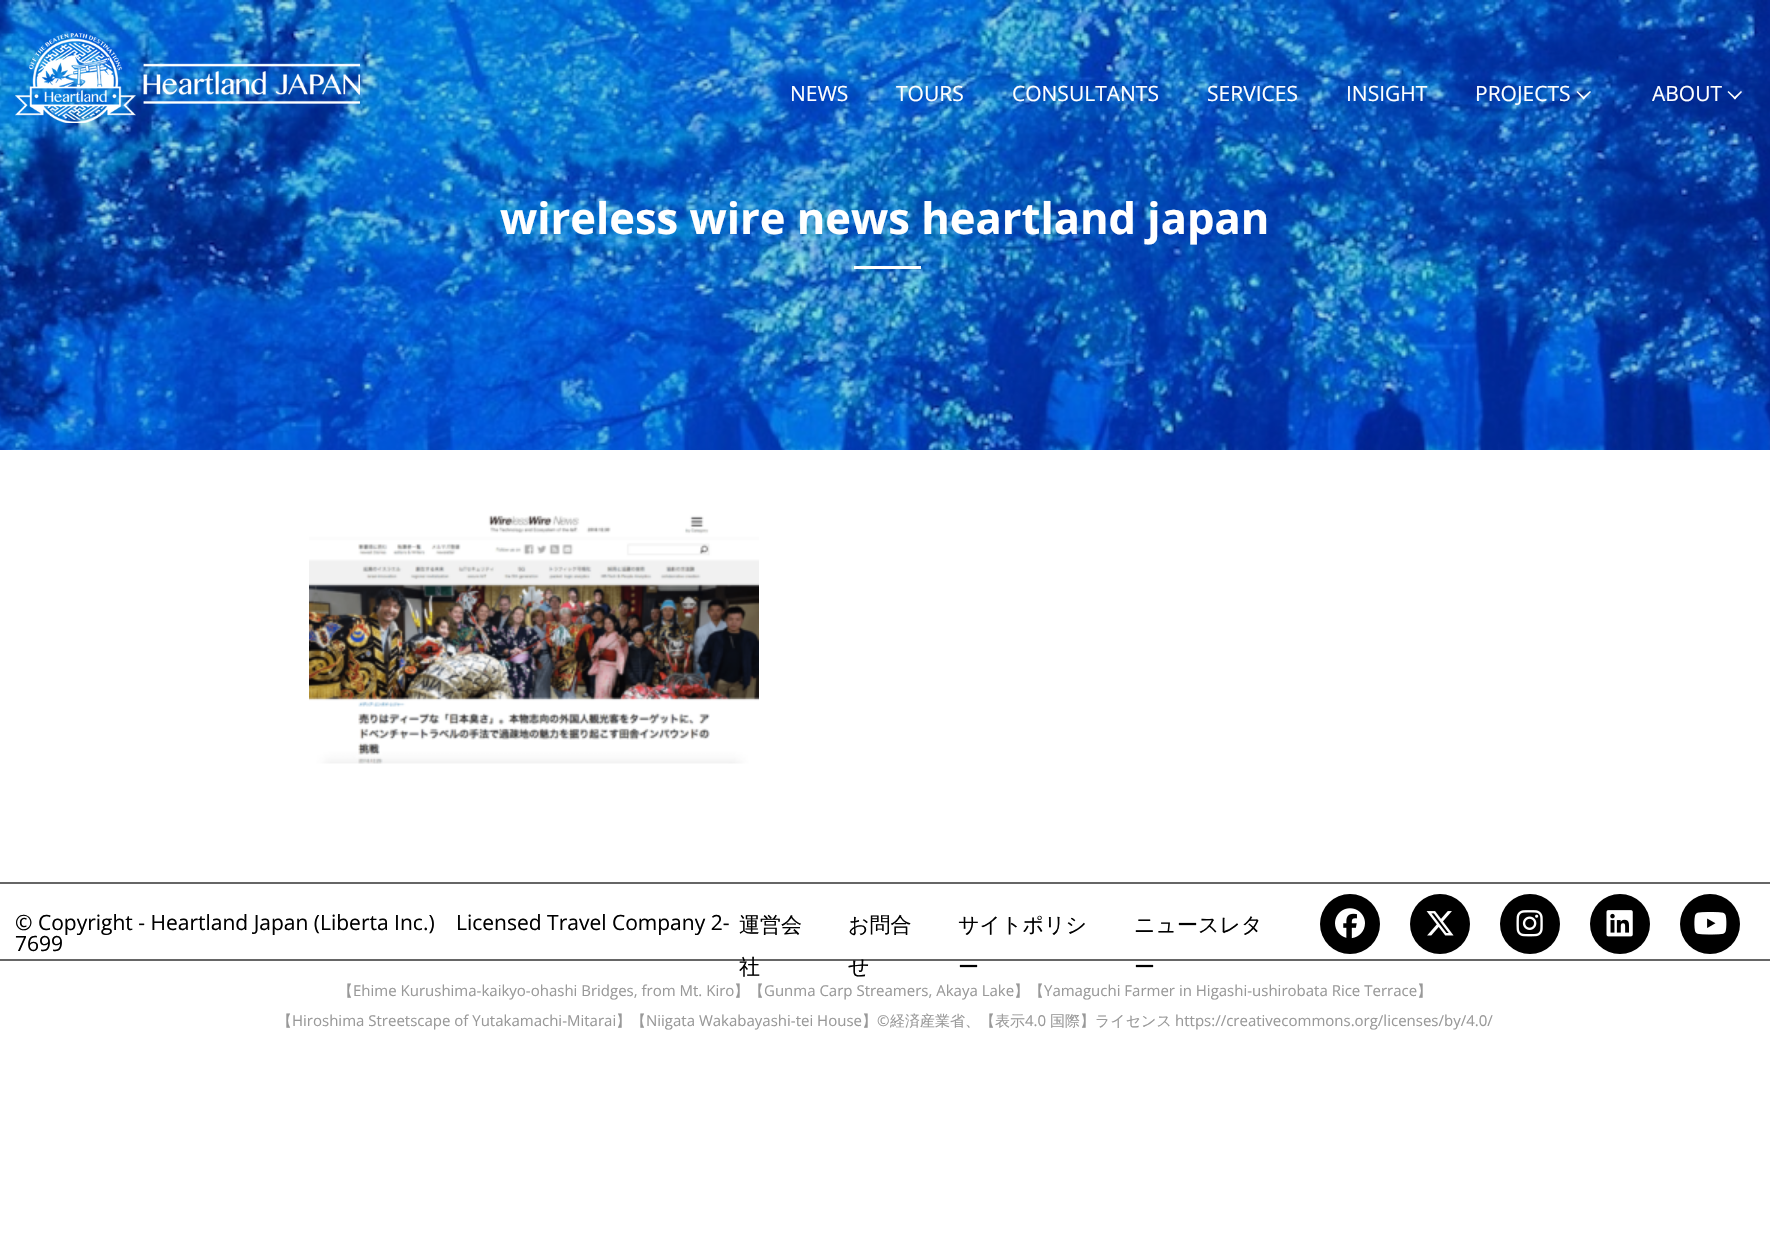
void draw(SkCanvas* canvas) {
  SkPaint paint;
  paint.setAntiAlias(true);
  auto face = [&](const char* family, int weight, float size, bool italic = false) {
    SkFontStyle style(weight, SkFontStyle::kNormal_Width,
      italic ? SkFontStyle::kItalic_Slant : SkFontStyle::kUpright_Slant);
    SkFont result(fontMgr->matchFamilyStyle(family, style), size);
    result.setSubpixel(true);
    return result;
  };
  auto paste = [&](const char* path, float x, float y, float w, float h) {
    auto image = SkImages::DeferredFromEncodedData(SkData::MakeFromFileName(path));
    canvas->drawImageRect(image, SkRect::MakeXYWH(x, y, w, h), SkSamplingOptions());
  };
  auto shape = [&](const char* data, bool evenOdd = false) {
    SkPath result = *SkParsePath::FromSVGString(data);
    if (evenOdd) result.setFillType(SkPathFillType::kEvenOdd);
    return result;
  };
  canvas->clear(0xffffffff);
  paste("img/2.png", 0, 0, 1770, 450);
  paste("img/1.png", 15, 33, 345, 90);
  paint.setColor(0xffffffff);
  canvas->drawPath(shape("M1591 92L1583.5 99.5L1582.5 98L1590 91Z"), paint);
  canvas->drawPath(shape("M1585 98L1583.5 99.5L1576.5 92L1577.5 91Z"), paint);
  canvas->drawPath(shape("M1742 92L1735 99.5L1733.5 98L1741 91Z"), paint);
  canvas->drawPath(shape("M1736 98L1735 99.5L1727.5 92L1728.5 91Z"), paint);
  canvas->drawRect(SkRect::MakeXYWH(854, 266, 67, 3), paint);
  paste("img/3.png", 309, 515, 450, 249);
  paint.setColor(0xff666666);
  canvas->drawRect(SkRect::MakeXYWH(0, 882, 1770, 2), paint);
  canvas->drawRect(SkRect::MakeXYWH(0, 959, 1770, 2), paint);
  paint.setColor(0xff000000);
  canvas->drawCircle(1350, 924, 30, paint);
  paste("img/4.png", 1335, 908, 30, 31);
  canvas->drawCircle(1440, 924, 30, paint);
  paste("img/5.png", 1426, 911, 28, 25);
  canvas->drawCircle(1530, 924, 30, paint);
  paste("img/6.png", 1516, 910, 27, 27);
  canvas->drawCircle(1620, 924, 30, paint);
  paste("img/7.png", 1606, 910, 27, 27);
  canvas->drawCircle(1710, 924, 30, paint);
  paste("img/8.png", 1694, 912, 33, 23);
  auto f0 = face("Open Sans", 400, 21);
  paint.setColor(0xffffffff);
  {
    const struct { const char* s; float x, y; } items[] = {
      {"NEWS", 790, 101},
      {"TOURS", 896, 101},
      {"CONSULTANTS", 1012, 101},
      {"SERVICES", 1207, 101},
      {"INSIGHT", 1346, 101},
      {"PROJECTS", 1475, 101},
      {"ABOUT", 1652, 101},
    };
    for (auto [s, x, y] : items) {
      canvas->drawString(s, x, y, f0, paint);
    }
  }
  auto f1 = face("Open Sans", 700, 43.5f);
  canvas->drawString("wireless wire news heartland japan", 500, 234, f1, paint);
  paint.setColor(0xff000000);
  {
    const struct { const char* s; float x, y; } items[] = {
      {"© Copyright - Heartland Japan (Liberta Inc.)", 15, 930},
      {"Licensed Travel Company 2-", 456, 930},
      {"7699", 15, 951},
    };
    for (auto [s, x, y] : items) {
      canvas->drawString(s, x, y, f0, paint);
    }
  }
  auto f2 = face("WenQuanYi Zen Hei", 500, 21);
  {
    const struct { const char* s; float x, y; } items[] = {
      {"運営会", 739, 932},
      {"社", 739, 974},
      {"お問合", 848, 932},
      {"せ", 848, 974},
      {"サイトポリシ", 958, 932},
      {"ー", 958, 974},
      {"ニュースレタ", 1134, 932},
      {"ー", 1134, 974},
    };
    for (auto [s, x, y] : items) {
      canvas->drawString(s, x, y, f2, paint);
    }
  }
  auto f3 = face("WenQuanYi Zen Hei", 500, 15);
  paint.setColor(0xff999999);
  canvas->drawString("【", 338, 996, f3, paint);
  auto f4 = face("Open Sans", 400, 15);
  canvas->drawString("Ehime Kurushima-kaikyo-ohashi Bridges, from Mt. Kiro", 353, 996, f4, paint);
  canvas->drawString("】【", 734, 996, f3, paint);
  canvas->drawString("Gunma Carp Streamers, Akaya Lake", 764, 996, f4, paint);
  canvas->drawString("】【", 1014, 996, f3, paint);
  canvas->drawString("Yamaguchi Farmer in Higashi-ushirobata Rice Terrace", 1044, 996, f4, paint);
  canvas->drawString("】", 1417, 996, f3, paint);
  canvas->drawString("【", 277, 1026, f3, paint);
  canvas->drawString("Hiroshima Streetscape of Yutakamachi-Mitarai", 292, 1026, f4, paint);
  canvas->drawString("】【", 616, 1026, f3, paint);
  canvas->drawString("Niigata Wakabayashi-tei House", 646, 1026, f4, paint);
  canvas->drawString("】", 862, 1026, f3, paint);
  canvas->drawString("©", 877, 1026, f4, paint);
  canvas->drawString("経済産業省、【表示", 890, 1026, f3, paint);
  canvas->drawString("4.0", 1025, 1026, f4, paint);
  canvas->drawString("国際】ライセンス", 1050, 1026, f3, paint);
  canvas->drawString("https://creativecommons.org/licenses/by/4.0/", 1175, 1026, f4, paint);
}
